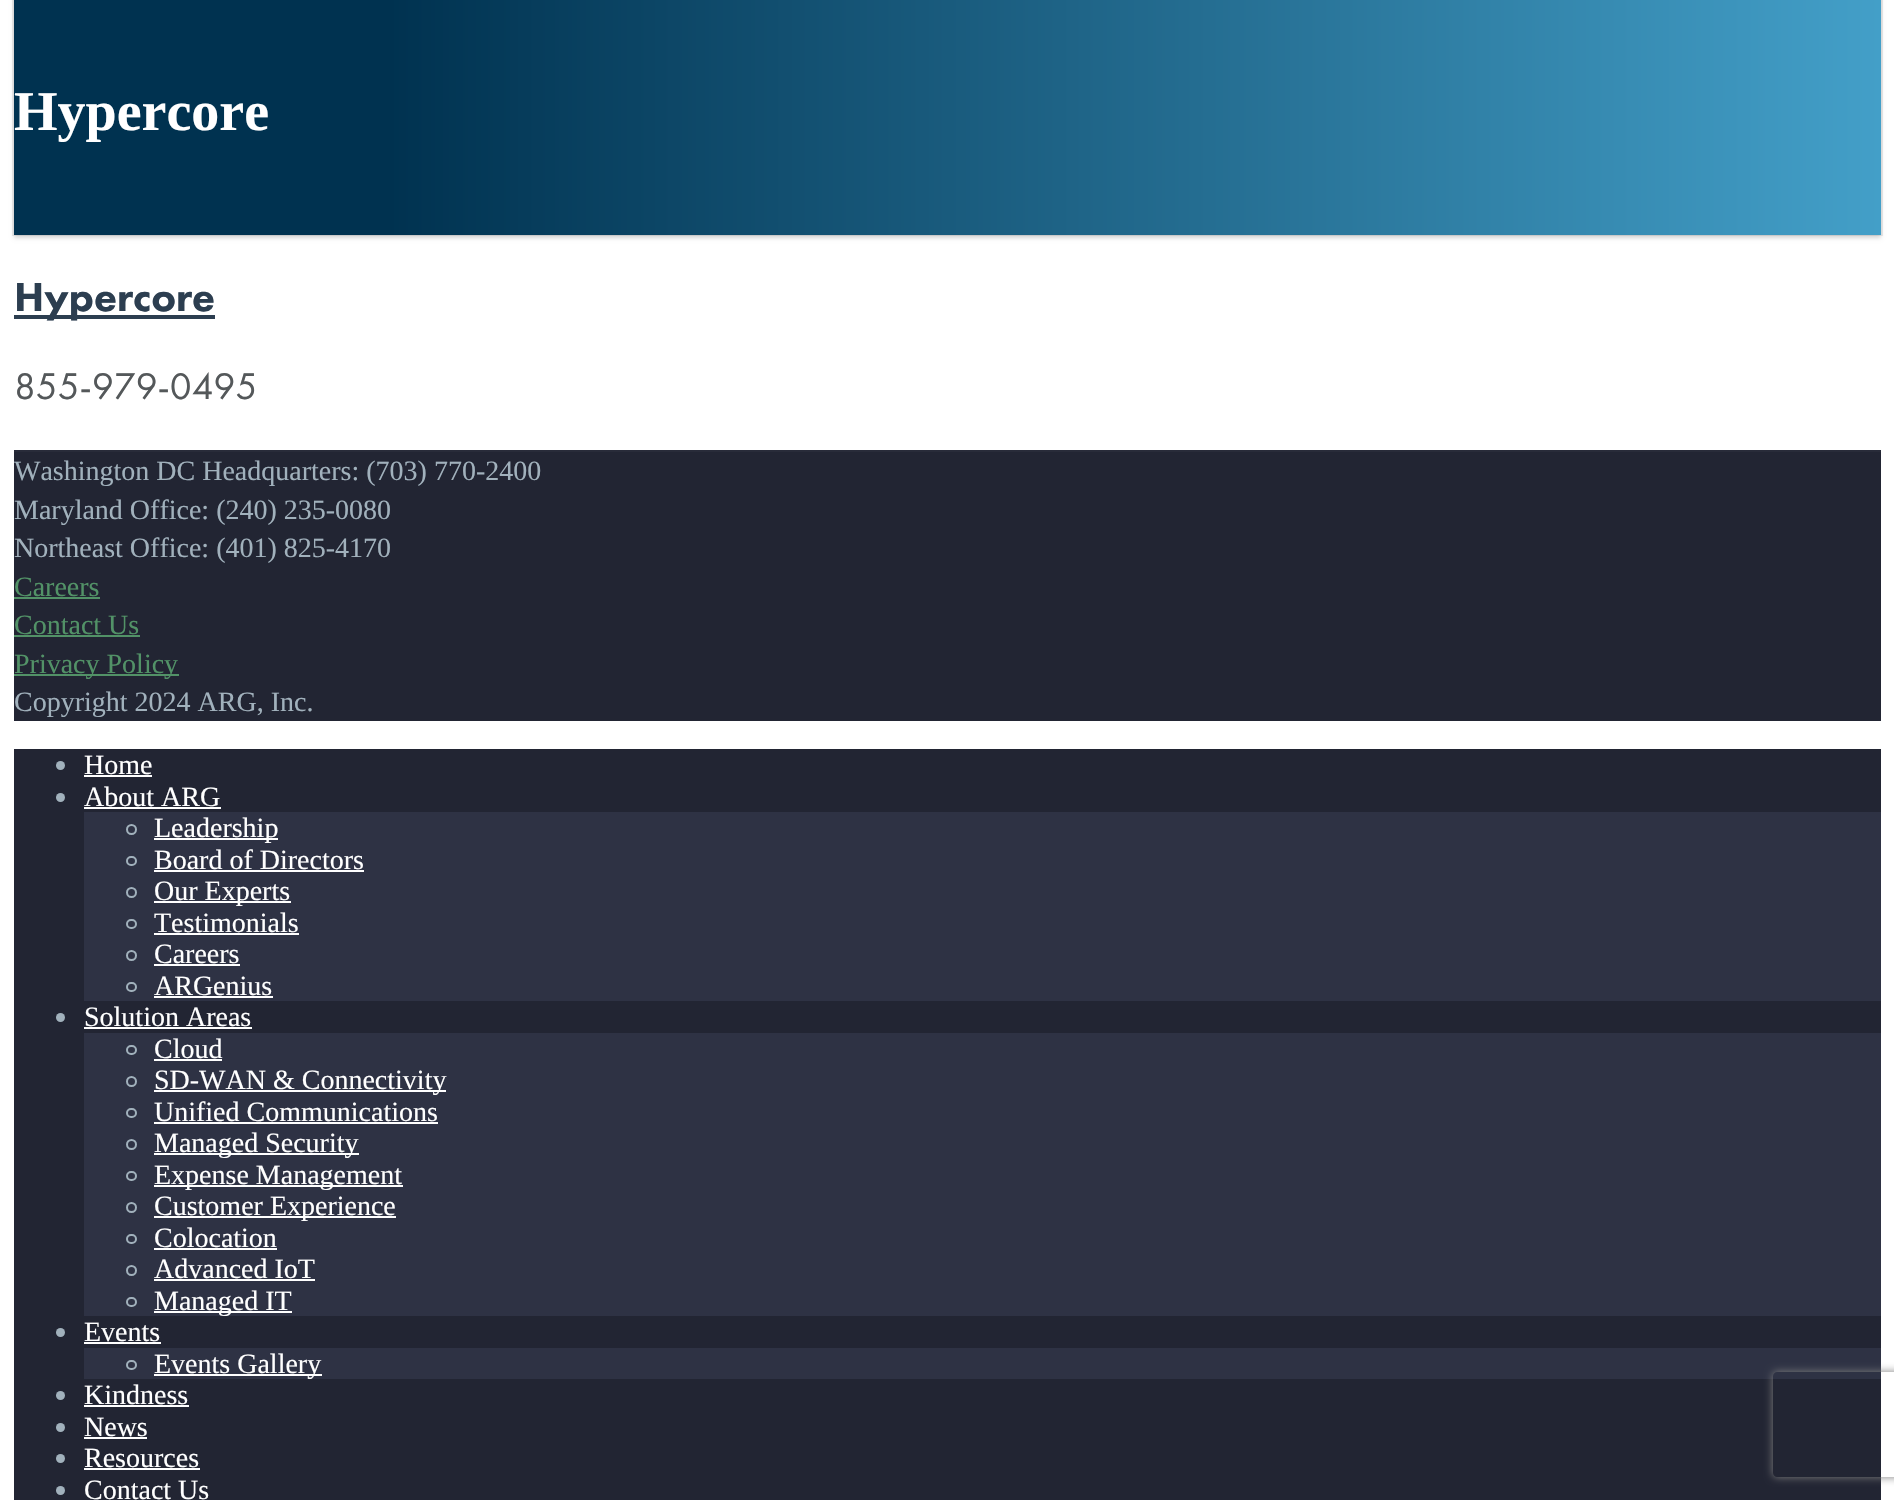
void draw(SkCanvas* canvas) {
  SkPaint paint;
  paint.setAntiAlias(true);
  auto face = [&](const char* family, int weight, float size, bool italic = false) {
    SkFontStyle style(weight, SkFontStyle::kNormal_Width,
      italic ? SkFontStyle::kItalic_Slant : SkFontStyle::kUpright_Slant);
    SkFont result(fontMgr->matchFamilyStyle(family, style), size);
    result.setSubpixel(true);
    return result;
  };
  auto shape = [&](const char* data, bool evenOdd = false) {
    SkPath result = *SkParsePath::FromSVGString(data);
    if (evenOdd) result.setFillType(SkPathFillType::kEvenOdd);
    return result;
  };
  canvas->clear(0xffffffff);
  paint.setStroke(true);
  paint.setStrokeWidth(2);
  paint.setColor(0xffebebeb);
  canvas->drawRect(SkRect::MakeXYWH(13, -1, 1869, 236), paint);
  paint.setStroke(false);
  paint.setColor(0x29000000);
  paint.setMaskFilter(SkMaskFilter::MakeBlur(kNormal_SkBlurStyle, 2));
  canvas->drawRect(SkRect::MakeXYWH(14, -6, 1867, 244), paint);
  paint.setMaskFilter(nullptr);
  {
    const SkColor colors[] = {0xff003250, 0xff439fc8};
    const float stops[] = {0.2f, 1};
    const SkPoint ends[] = {{14, 112}, {1881, 112}};
    paint.setShader(SkGradientShader::MakeLinear(ends, colors, stops, 2, SkTileMode::kClamp));
    paint.setAlpha(255);
  }
  canvas->drawRect(SkRect::MakeXYWH(14, 0, 1867, 235), paint);
  paint.setShader(nullptr);
  {
    const struct { float x, y, w, h; SkColor color; } items[] = {
      {14, 315, 201, 4, 0xff2c3e50},
      {14, 452, 1867, 269, 0xff222533},
      {14, 450, 1867, 2, 0xff282b39},
      {14, 597, 86, 2, 0xff529267},
      {14, 635, 126, 2, 0xff529267},
      {14, 674, 165, 2, 0xff529267},
      {14, 749, 1867, 751, 0xff222533},
    };
    for (auto [x, y, w, h, color] : items) {
      paint.setColor(color);
      canvas->drawRect(SkRect::MakeXYWH(x, y, w, h), paint);
    }
  }
  paint.setColor(0xffa1b1bc);
  canvas->drawCircle(60.5f, 765.5f, 4.5f, paint);
  paint.setColor(0xffffffff);
  canvas->drawRect(SkRect::MakeXYWH(84, 775, 68, 2), paint);
  paint.setColor(0xffa1b1bc);
  canvas->drawCircle(60.5f, 797.5f, 4.5f, paint);
  paint.setColor(0xffffffff);
  canvas->drawRect(SkRect::MakeXYWH(84, 807, 137, 2), paint);
  paint.setColor(0xff2e3244);
  canvas->drawRect(SkRect::MakeXYWH(84, 812, 1797, 189), paint);
  paint.setStroke(true);
  paint.setColor(0xffa1b1bc);
  canvas->drawCircle(131.5f, 829.5f, 4.5f, paint);
  paint.setStroke(false);
  paint.setColor(0xffffffff);
  canvas->drawRect(SkRect::MakeXYWH(154, 838, 124, 2), paint);
  paint.setStroke(true);
  paint.setColor(0xffa1b1bc);
  canvas->drawRoundRect(SkRect::MakeXYWH(127, 857, 9, 8), 4, 4, paint);
  paint.setStroke(false);
  paint.setColor(0xffffffff);
  canvas->drawRect(SkRect::MakeXYWH(154, 870, 210, 2), paint);
  paint.setStroke(true);
  paint.setColor(0xffa1b1bc);
  canvas->drawCircle(131.5f, 892.5f, 4.5f, paint);
  paint.setStroke(false);
  paint.setColor(0xffffffff);
  canvas->drawRect(SkRect::MakeXYWH(154, 901, 137, 2), paint);
  paint.setStroke(true);
  paint.setColor(0xffa1b1bc);
  canvas->drawRoundRect(SkRect::MakeXYWH(127, 920, 9, 8), 4, 4, paint);
  paint.setStroke(false);
  paint.setColor(0xffffffff);
  canvas->drawRect(SkRect::MakeXYWH(154, 933, 145, 2), paint);
  paint.setStroke(true);
  paint.setColor(0xffa1b1bc);
  canvas->drawCircle(131.5f, 955.5f, 4.5f, paint);
  paint.setStroke(false);
  paint.setColor(0xffffffff);
  canvas->drawRect(SkRect::MakeXYWH(154, 964, 86, 2), paint);
  paint.setStroke(true);
  paint.setColor(0xffa1b1bc);
  canvas->drawRoundRect(SkRect::MakeXYWH(127, 983, 9, 8), 4, 4, paint);
  paint.setStroke(false);
  paint.setColor(0xffffffff);
  canvas->drawRect(SkRect::MakeXYWH(154, 996, 119, 2), paint);
  paint.setColor(0xffa1b1bc);
  canvas->drawCircle(60.5f, 1017.5f, 4.5f, paint);
  paint.setColor(0xffffffff);
  canvas->drawRect(SkRect::MakeXYWH(84, 1027, 168, 2), paint);
  paint.setColor(0xff2e3244);
  canvas->drawRect(SkRect::MakeXYWH(84, 1033, 1797, 283), paint);
  paint.setStroke(true);
  paint.setColor(0xffa1b1bc);
  canvas->drawRoundRect(SkRect::MakeXYWH(127, 1046, 9, 8), 4, 4, paint);
  paint.setStroke(false);
  paint.setColor(0xffffffff);
  canvas->drawRect(SkRect::MakeXYWH(154, 1059, 68, 2), paint);
  paint.setStroke(true);
  paint.setColor(0xffa1b1bc);
  canvas->drawCircle(131.5f, 1081.5f, 4.5f, paint);
  paint.setStroke(false);
  paint.setColor(0xffffffff);
  canvas->drawRect(SkRect::MakeXYWH(154, 1090, 292, 2), paint);
  paint.setStroke(true);
  paint.setColor(0xffa1b1bc);
  canvas->drawRoundRect(SkRect::MakeXYWH(127, 1109, 9, 8), 4, 4, paint);
  paint.setStroke(false);
  paint.setColor(0xffffffff);
  canvas->drawRect(SkRect::MakeXYWH(154, 1122, 284, 2), paint);
  paint.setStroke(true);
  paint.setColor(0xffa1b1bc);
  canvas->drawCircle(131.5f, 1144.5f, 4.5f, paint);
  paint.setStroke(false);
  paint.setColor(0xffffffff);
  canvas->drawRect(SkRect::MakeXYWH(154, 1153, 205, 2), paint);
  paint.setStroke(true);
  paint.setColor(0xffa1b1bc);
  canvas->drawRoundRect(SkRect::MakeXYWH(127, 1172, 9, 8), 4, 4, paint);
  paint.setStroke(false);
  paint.setColor(0xffffffff);
  canvas->drawRect(SkRect::MakeXYWH(154, 1185, 249, 2), paint);
  paint.setStroke(true);
  paint.setColor(0xffa1b1bc);
  canvas->drawCircle(131.5f, 1207.5f, 4.5f, paint);
  paint.setStroke(false);
  paint.setColor(0xffffffff);
  canvas->drawRect(SkRect::MakeXYWH(154, 1216, 242, 2), paint);
  paint.setStroke(true);
  paint.setColor(0xffa1b1bc);
  canvas->drawRoundRect(SkRect::MakeXYWH(127, 1235, 9, 8), 4, 4, paint);
  paint.setStroke(false);
  paint.setColor(0xffffffff);
  canvas->drawRect(SkRect::MakeXYWH(154, 1248, 123, 2), paint);
  paint.setStroke(true);
  paint.setColor(0xffa1b1bc);
  canvas->drawCircle(131.5f, 1270.5f, 4.5f, paint);
  paint.setStroke(false);
  paint.setColor(0xffffffff);
  canvas->drawRect(SkRect::MakeXYWH(154, 1279, 161, 2), paint);
  paint.setStroke(true);
  paint.setColor(0xffa1b1bc);
  canvas->drawRoundRect(SkRect::MakeXYWH(127, 1298, 9, 8), 4, 4, paint);
  paint.setStroke(false);
  paint.setColor(0xffffffff);
  canvas->drawRect(SkRect::MakeXYWH(154, 1311, 138, 2), paint);
  paint.setColor(0xffa1b1bc);
  canvas->drawCircle(60.5f, 1332.5f, 4.5f, paint);
  paint.setColor(0xffffffff);
  canvas->drawRect(SkRect::MakeXYWH(84, 1342, 77, 2), paint);
  paint.setColor(0xff2e3244);
  canvas->drawRect(SkRect::MakeXYWH(84, 1348, 1797, 31), paint);
  paint.setStroke(true);
  paint.setColor(0xffa1b1bc);
  canvas->drawRoundRect(SkRect::MakeXYWH(127, 1361, 9, 8), 4, 4, paint);
  paint.setStroke(false);
  paint.setColor(0xffffffff);
  canvas->drawRect(SkRect::MakeXYWH(154, 1374, 168, 2), paint);
  paint.setColor(0xffa1b1bc);
  canvas->drawCircle(60.5f, 1395.5f, 4.5f, paint);
  paint.setColor(0xffffffff);
  canvas->drawRect(SkRect::MakeXYWH(84, 1405, 105, 2), paint);
  paint.setColor(0xffa1b1bc);
  canvas->drawCircle(60.5f, 1427.5f, 4.5f, paint);
  paint.setColor(0xffffffff);
  canvas->drawRect(SkRect::MakeXYWH(84, 1437, 63, 2), paint);
  paint.setColor(0xffa1b1bc);
  canvas->drawCircle(60.5f, 1458.5f, 4.5f, paint);
  paint.setColor(0xffffffff);
  canvas->drawRect(SkRect::MakeXYWH(84, 1468, 116, 2), paint);
  paint.setColor(0xffa1b1bc);
  canvas->drawCircle(60.5f, 1490.5f, 4.5f, paint);
  canvas->save();
  canvas->clipPath(shape("M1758 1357H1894V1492H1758ZM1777 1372H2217C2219 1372 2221 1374 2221 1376V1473C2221 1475 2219 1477 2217 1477H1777C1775 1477 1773 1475 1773 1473V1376C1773 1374 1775 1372 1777 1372Z", true), true);
  paint.setColor(0xff808080);
  paint.setMaskFilter(SkMaskFilter::MakeBlur(kNormal_SkBlurStyle, 4.5f));
  canvas->drawRoundRect(SkRect::MakeXYWH(1773, 1372, 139, 105), 4, 4, paint);
  paint.setMaskFilter(nullptr);
  canvas->restore();
  auto f0 = face("Liberation Serif", 700, 56);
  paint.setColor(0xffffffff);
  canvas->drawString("Hypercore", 14, 130, f0, paint);
  auto f1 = face("Futura PT", 900, 42);
  paint.setColor(0xff2c3e50);
  canvas->drawString("Hypercore", 14, 311, f1, paint);
  auto f2 = face("Futura PT", 400, 38.5f);
  paint.setColor(0xff54585a);
  canvas->drawString("855-979-0495", 14, 399, f2, paint);
  auto f3 = face("Liberation Serif", 400, 28);
  paint.setColor(0xffa1b1bc);
  {
    const struct { const char* s; float x, y; } items[] = {
      {"Washington DC Headquarters: (703) 770-2400", 14, 480},
      {"Maryland Office: (240) 235-0080", 14, 519},
      {"Northeast Office: (401) 825-4170", 14, 557},
    };
    for (auto [s, x, y] : items) {
      canvas->drawString(s, x, y, f3, paint);
    }
  }
  paint.setColor(0xff529267);
  {
    const struct { const char* s; float x, y; } items[] = {
      {"Careers", 14, 596},
      {"Contact Us", 14, 634},
      {"Privacy Policy", 14, 673},
    };
    for (auto [s, x, y] : items) {
      canvas->drawString(s, x, y, f3, paint);
    }
  }
  paint.setColor(0xffa1b1bc);
  canvas->drawString("Copyright 2024 ARG, Inc.", 14, 711, f3, paint);
  paint.setColor(0xffffffff);
  {
    const struct { const char* s; float x, y; } items[] = {
      {"Home", 84, 774},
      {"About ARG", 84, 806},
      {"Leadership", 154, 837},
      {"Board of Directors", 154, 869},
      {"Our Experts", 154, 900},
      {"Testimonials", 154, 932},
      {"Careers", 154, 963},
      {"ARGenius", 154, 995},
      {"Solution Areas", 84, 1026},
      {"Cloud", 154, 1058},
      {"SD-WAN & Connectivity", 154, 1089},
      {"Unified Communications", 154, 1121},
      {"Managed Security", 154, 1152},
      {"Expense Management", 154, 1184},
      {"Customer Experience", 154, 1215},
      {"Colocation", 154, 1247},
      {"Advanced IoT", 154, 1278},
      {"Managed IT", 154, 1310},
      {"Events", 84, 1341},
      {"Events Gallery", 154, 1373},
      {"Kindness", 84, 1404},
      {"News", 84, 1436},
      {"Resources", 84, 1467},
      {"Contact Us", 84, 1499},
    };
    for (auto [s, x, y] : items) {
      canvas->drawString(s, x, y, f3, paint);
    }
  }
}
